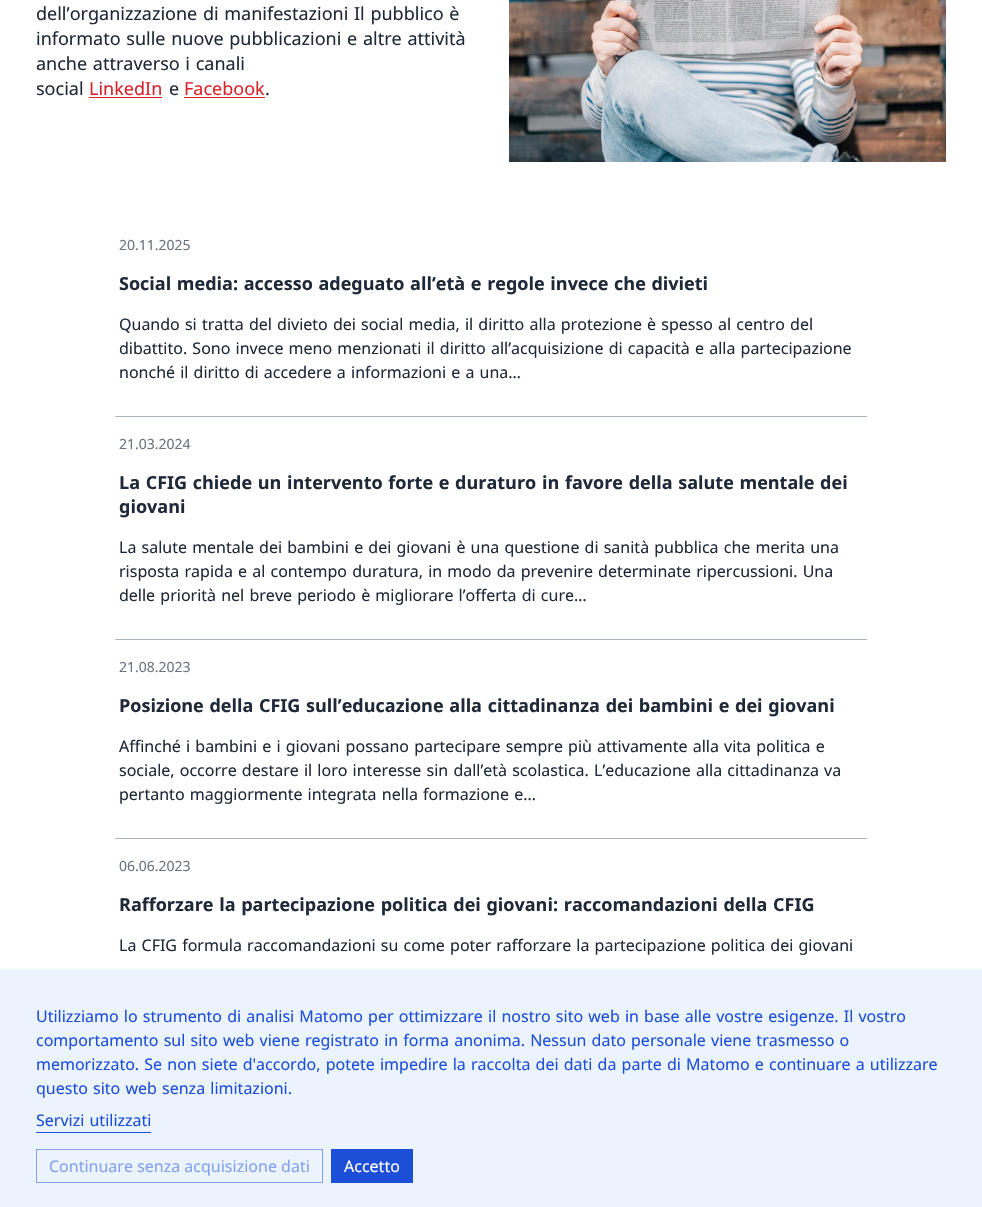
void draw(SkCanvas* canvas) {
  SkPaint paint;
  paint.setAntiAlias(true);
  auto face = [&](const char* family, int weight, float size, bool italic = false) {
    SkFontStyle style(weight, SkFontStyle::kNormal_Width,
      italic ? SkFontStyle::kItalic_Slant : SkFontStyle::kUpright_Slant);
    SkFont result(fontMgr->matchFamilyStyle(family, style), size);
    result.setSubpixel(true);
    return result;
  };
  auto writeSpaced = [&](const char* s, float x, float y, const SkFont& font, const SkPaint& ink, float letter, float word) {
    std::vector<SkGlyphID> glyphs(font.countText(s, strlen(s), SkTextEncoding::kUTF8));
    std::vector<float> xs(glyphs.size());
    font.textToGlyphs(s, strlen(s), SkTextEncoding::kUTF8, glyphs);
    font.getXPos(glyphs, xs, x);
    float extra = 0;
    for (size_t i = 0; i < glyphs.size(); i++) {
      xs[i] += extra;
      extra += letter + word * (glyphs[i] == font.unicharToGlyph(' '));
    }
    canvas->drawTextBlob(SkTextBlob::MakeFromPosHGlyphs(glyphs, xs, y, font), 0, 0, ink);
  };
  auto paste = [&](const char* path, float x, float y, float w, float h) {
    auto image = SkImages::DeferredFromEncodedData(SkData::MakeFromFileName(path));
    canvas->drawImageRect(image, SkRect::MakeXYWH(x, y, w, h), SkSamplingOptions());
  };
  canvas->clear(0xffffffff);
  paint.setColor(0xffd8232a);
  canvas->drawRect(SkRect::MakeXYWH(89, 97, 73, 1), paint);
  canvas->drawRect(SkRect::MakeXYWH(184, 97, 81, 1), paint);
  paste("img/1.png", 509, 0, 437, 162);
  {
    const struct { float x, y, w, h; SkColor color; } items[] = {
      {115, 416, 752, 1, 0xffacb4bd},
      {115, 639, 752, 1, 0xffacb4bd},
      {115, 838, 752, 1, 0xffacb4bd},
      {0, 969, 982, 238, 0xffebf3ff},
      {36, 1132, 115, 1, 0xff1d4ed8},
    };
    for (auto [x, y, w, h, color] : items) {
      paint.setColor(color);
      canvas->drawRect(SkRect::MakeXYWH(x, y, w, h), paint);
    }
  }
  paint.setStroke(true);
  paint.setStrokeWidth(1);
  paint.setColor(0xff84a1ec);
  canvas->drawRect(SkRect::MakeXYWH(36.5f, 1149.5f, 286, 33), paint);
  paint.setStroke(false);
  paint.setColor(0xff1d4ed8);
  canvas->drawRect(SkRect::MakeXYWH(331, 1149, 82, 34), paint);
  auto f0 = face("Noto Sans", 400, 18);
  paint.setColor(0xff1f2937);
  {
    const struct { const char* s; float x, y; } items[] = {
      {"dell’organizzazione di manifestazioni Il pubblico è", 36, 20},
      {"informato sulle nuove pubblicazioni e altre attività", 36, 45},
      {"anche attraverso i canali", 36, 70},
    };
    for (auto [s, x, y] : items) {
      writeSpaced(s, x, y, f0, paint, 0, 1);
    }
  }
  canvas->drawString("social", 36, 95, f0, paint);
  paint.setColor(0xffd8232a);
  canvas->drawString("LinkedIn", 89, 95, f0, paint);
  paint.setColor(0xff1f2937);
  canvas->drawString("e", 169, 95, f0, paint);
  paint.setColor(0xffd8232a);
  canvas->drawString("Facebook", 184, 95, f0, paint);
  paint.setColor(0xff1f2937);
  canvas->drawString(".", 265, 95, f0, paint);
  auto f1 = face("Noto Sans", 400, 14);
  paint.setColor(0xff6b7280);
  canvas->drawString("20.11.2025", 119, 250, f1, paint);
  auto f2 = face("Noto Sans", 700, 18);
  paint.setColor(0xff1f2937);
  writeSpaced("Social media: accesso adeguato all’età e regole invece che divieti", 119, 290, f2, paint, 0, 1);
  auto f3 = face("Noto Sans", 400, 16);
  {
    const struct { const char* s; float x, y; } items[] = {
      {"Quando si tratta del divieto dei social media, il diritto alla protezione è spesso al centro del", 119, 330},
      {"dibattito. Sono invece meno menzionati il diritto all’acquisizione di capacità e alla partecipazione", 119, 354},
      {"nonché il diritto di accedere a informazioni e a una…", 119, 378},
    };
    for (auto [s, x, y] : items) {
      writeSpaced(s, x, y, f3, paint, 0, 1);
    }
  }
  paint.setColor(0xff6b7280);
  canvas->drawString("21.03.2024", 119, 449, f1, paint);
  paint.setColor(0xff1f2937);
  writeSpaced("La CFIG chiede un intervento forte e duraturo in favore della salute mentale dei", 119, 489, f2, paint, 0, 1);
  canvas->drawString("giovani", 119, 513, f2, paint);
  {
    const struct { const char* s; float x, y; } items[] = {
      {"La salute mentale dei bambini e dei giovani è una questione di sanità pubblica che merita una", 119, 553},
      {"risposta rapida e al contempo duratura, in modo da prevenire determinate ripercussioni. Una", 119, 577},
      {"delle priorità nel breve periodo è migliorare l’offerta di cure…", 119, 601},
    };
    for (auto [s, x, y] : items) {
      writeSpaced(s, x, y, f3, paint, 0, 1);
    }
  }
  paint.setColor(0xff6b7280);
  canvas->drawString("21.08.2023", 119, 672, f1, paint);
  paint.setColor(0xff1f2937);
  writeSpaced("Posizione della CFIG sull’educazione alla cittadinanza dei bambini e dei giovani", 119, 712, f2, paint, 0, 1);
  {
    const struct { const char* s; float x, y; } items[] = {
      {"Affinché i bambini e i giovani possano partecipare sempre più attivamente alla vita politica e", 119, 752},
      {"sociale, occorre destare il loro interesse sin dall’età scolastica. L’educazione alla cittadinanza va", 119, 776},
      {"pertanto maggiormente integrata nella formazione e…", 119, 800},
    };
    for (auto [s, x, y] : items) {
      writeSpaced(s, x, y, f3, paint, 0, 1);
    }
  }
  paint.setColor(0xff6b7280);
  canvas->drawString("06.06.2023", 119, 871, f1, paint);
  paint.setColor(0xff1f2937);
  writeSpaced("Rafforzare la partecipazione politica dei giovani: raccomandazioni della CFIG", 119, 911, f2, paint, 0, 1);
  writeSpaced("La CFIG formula raccomandazioni su come poter rafforzare la partecipazione politica dei giovani", 119, 951, f3, paint, 0, 1);
  paint.setColor(0xff1d4ed8);
  {
    const struct { const char* s; float x, y; } items[] = {
      {"Utilizziamo lo strumento di analisi Matomo per ottimizzare il nostro sito web in base alle vostre esigenze. Il vostro", 36, 1022},
      {"comportamento sul sito web viene registrato in forma anonima. Nessun dato personale viene trasmesso o", 36, 1046},
      {"memorizzato. Se non siete d'accordo, potete impedire la raccolta dei dati da parte di Matomo e continuare a utilizzare", 36, 1070},
      {"questo sito web senza limitazioni.", 36, 1094},
      {"Servizi utilizzati", 36, 1126},
    };
    for (auto [s, x, y] : items) {
      writeSpaced(s, x, y, f3, paint, 0, 1);
    }
  }
  paint.setColor(0xff84a1ec);
  canvas->drawString("Continuare senza acquisizione dati", 49, 1172, f3, paint);
  paint.setColor(0xffffffff);
  canvas->drawString("Accetto", 344, 1172, f3, paint);
}
